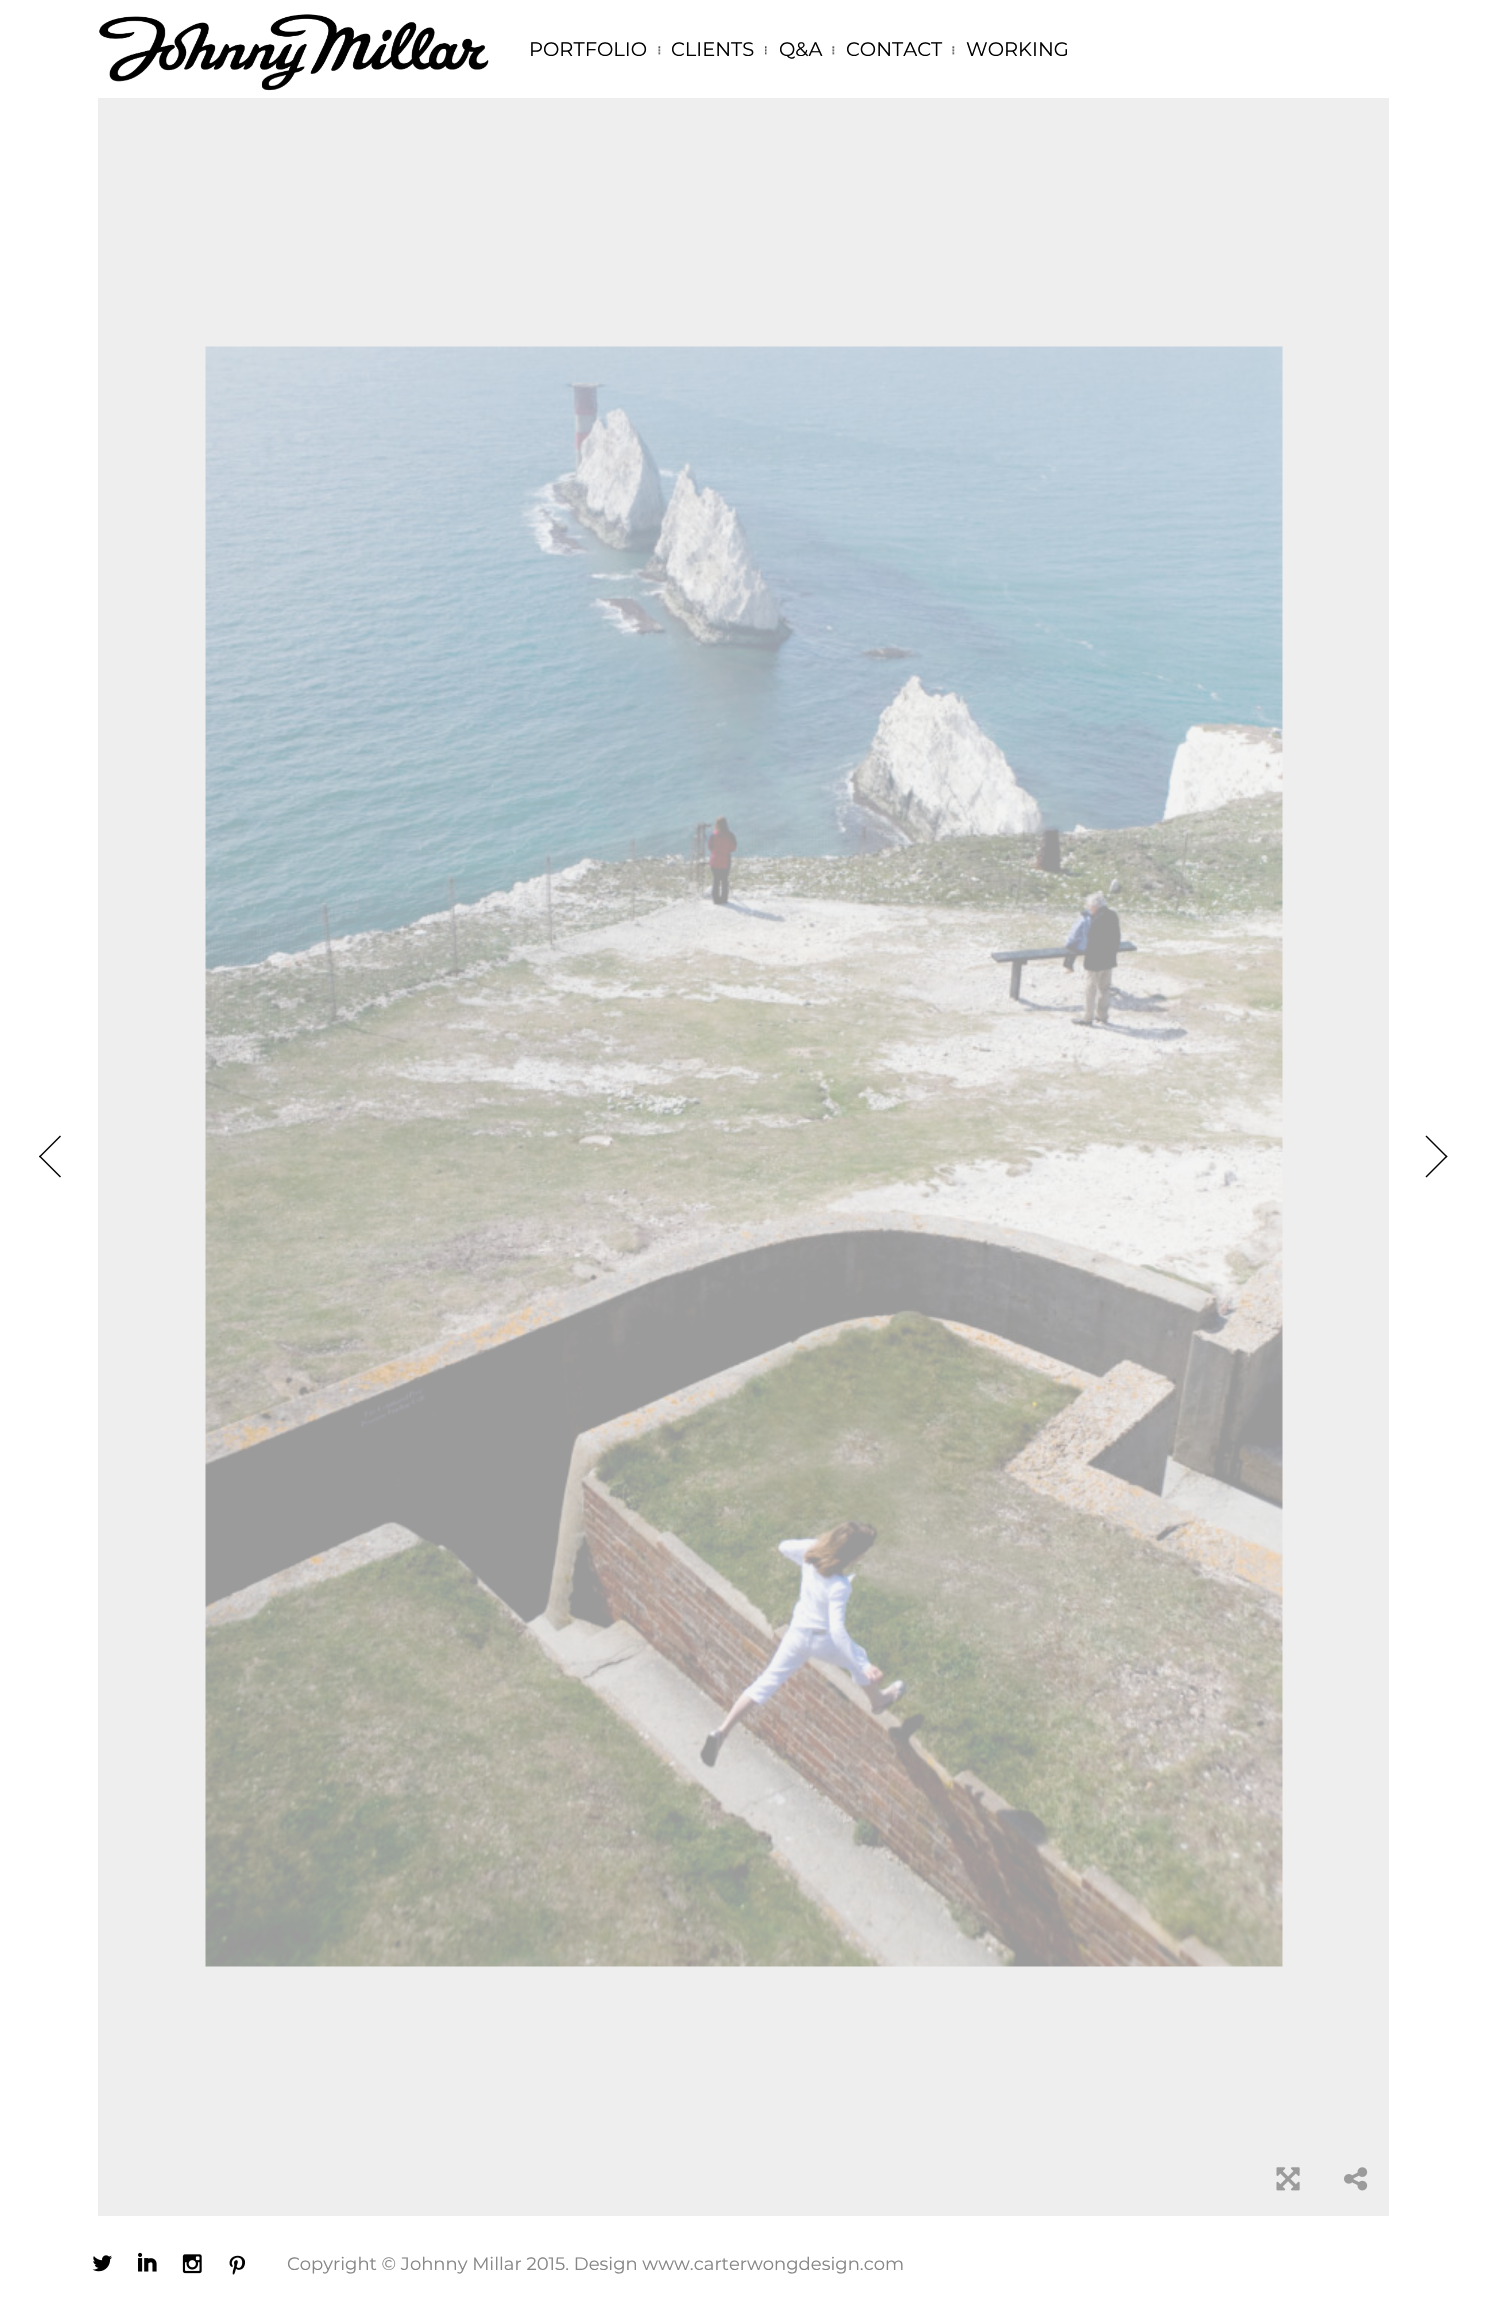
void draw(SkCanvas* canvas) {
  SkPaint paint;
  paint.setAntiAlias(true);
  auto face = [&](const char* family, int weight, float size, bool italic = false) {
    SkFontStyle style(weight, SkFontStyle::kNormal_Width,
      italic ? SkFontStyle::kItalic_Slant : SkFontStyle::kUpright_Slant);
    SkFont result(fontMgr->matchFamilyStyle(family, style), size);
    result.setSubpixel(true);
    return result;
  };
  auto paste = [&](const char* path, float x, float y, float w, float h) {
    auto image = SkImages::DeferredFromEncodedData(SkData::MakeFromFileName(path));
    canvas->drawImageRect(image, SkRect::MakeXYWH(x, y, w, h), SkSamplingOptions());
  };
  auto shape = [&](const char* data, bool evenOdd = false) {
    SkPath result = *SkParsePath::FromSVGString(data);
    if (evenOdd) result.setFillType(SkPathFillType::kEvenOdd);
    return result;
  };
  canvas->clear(0xffffffff);
  paste("img/1.png", 99, 14, 390, 77);
  paste("img/2.png", 658, 46, 3, 9);
  paste("img/3.png", 765, 46, 2, 9);
  paste("img/2.png", 832, 46, 3, 9);
  paste("img/2.png", 952, 46, 3, 9);
  paint.setColor(0xff000000);
  canvas->drawPath(shape("M40 1155.5L61 1176.5L60 1177.5L39 1156.5Z"), paint);
  canvas->drawPath(shape("M60 1135.5L61 1136.5L40 1157.5L39 1156.5Z"), paint);
  paint.setColor(0xffeeeeee);
  canvas->drawRect(SkRect::MakeXYWH(98, 98, 1291, 2118), paint);
  paste("img/4.png", 205, 346, 1078, 1621);
  paint.setColor(0xff000000);
  canvas->drawPath(shape("M1426.5 1135.5L1447.5 1156.5L1446.5 1157.5L1425.5 1136.5Z"), paint);
  canvas->drawPath(shape("M1446.5 1155.5L1447.5 1156.5L1426.5 1177.5L1425.5 1176.5Z"), paint);
  paste("img/5.png", 1276, 2167, 24, 24);
  paste("img/6.png", 1344, 2167, 24, 24);
  paste("img/7.png", 92, 2255, 20, 17);
  paste("img/8.png", 138, 2252, 19, 20);
  paste("img/9.png", 182, 2254, 20, 20);
  paste("img/10.png", 229, 2255, 17, 20);
  auto f0 = face("Montserrat", 100, 19.5f);
  {
    const struct { const char* s; float x, y; } items[] = {
      {"PORTFOLIO", 529, 56},
      {"CLIENTS", 671, 56},
      {"Q&A", 779, 56},
      {"CONTACT", 846, 56},
      {"WORKING", 966, 56},
    };
    for (auto [s, x, y] : items) {
      canvas->drawString(s, x, y, f0, paint);
    }
  }
  auto f1 = face("Montserrat", 100, 18);
  paint.setColor(0xff868686);
  canvas->drawString("Copyright © Johnny Millar 2015. Design www.carterwongdesign.com", 287, 2270, f1, paint);
}
